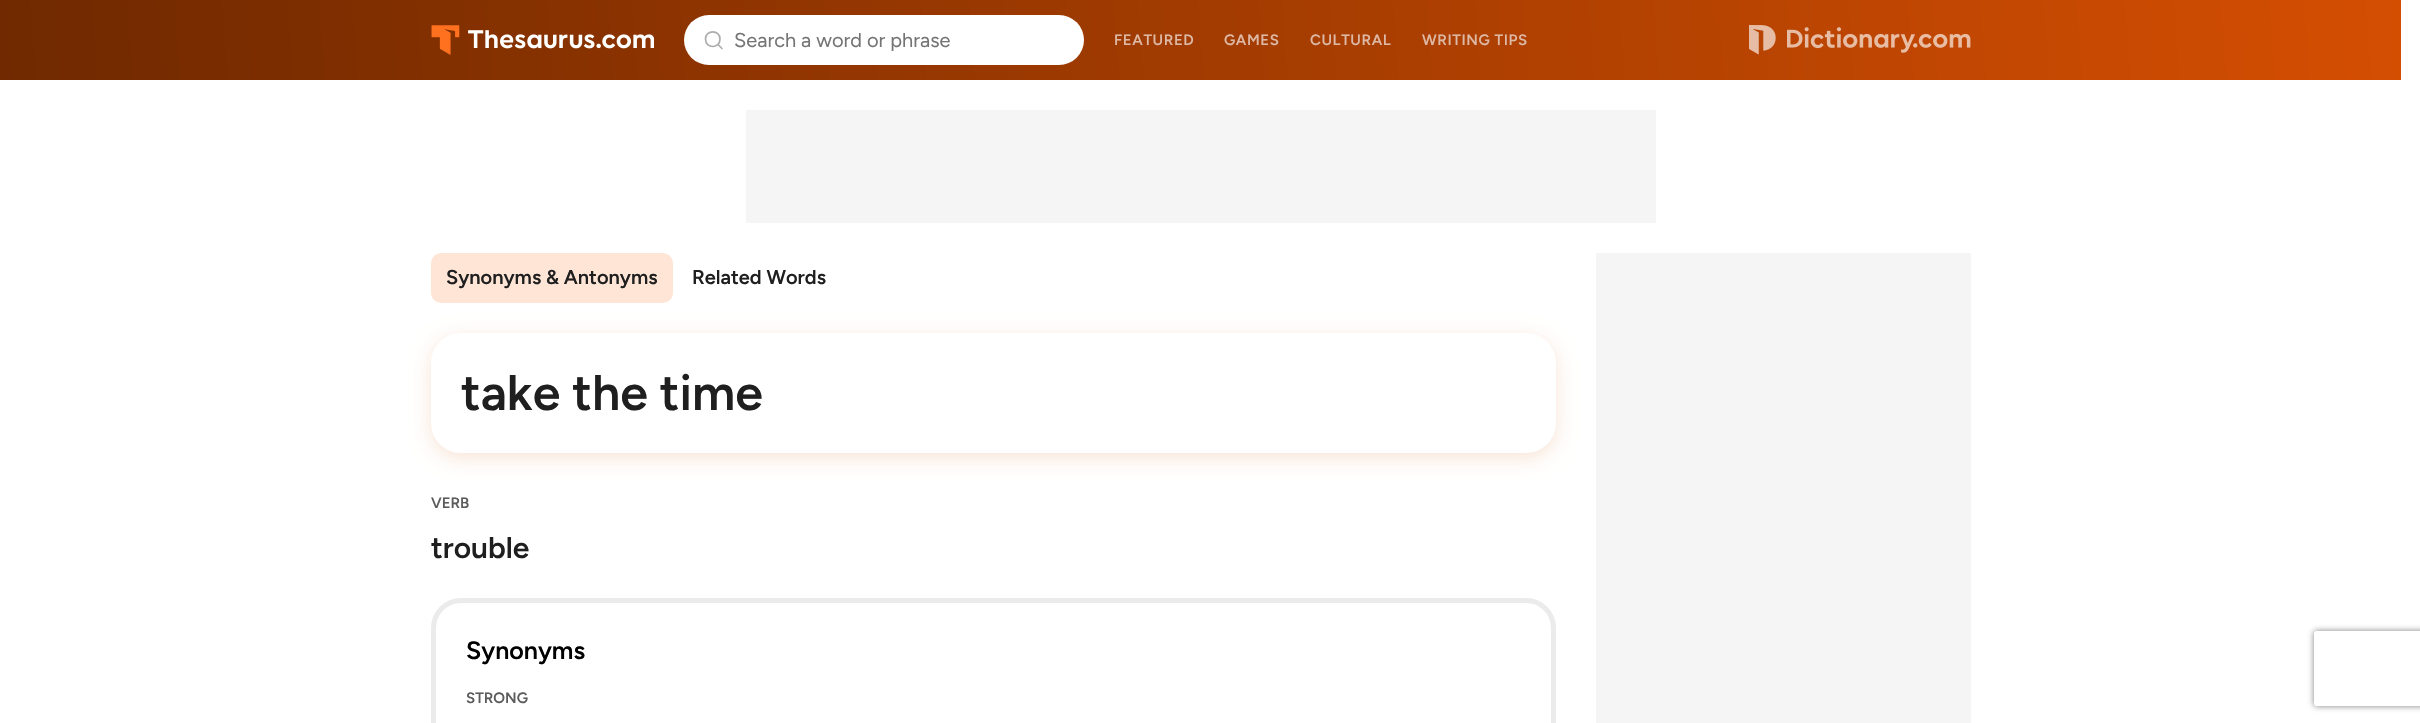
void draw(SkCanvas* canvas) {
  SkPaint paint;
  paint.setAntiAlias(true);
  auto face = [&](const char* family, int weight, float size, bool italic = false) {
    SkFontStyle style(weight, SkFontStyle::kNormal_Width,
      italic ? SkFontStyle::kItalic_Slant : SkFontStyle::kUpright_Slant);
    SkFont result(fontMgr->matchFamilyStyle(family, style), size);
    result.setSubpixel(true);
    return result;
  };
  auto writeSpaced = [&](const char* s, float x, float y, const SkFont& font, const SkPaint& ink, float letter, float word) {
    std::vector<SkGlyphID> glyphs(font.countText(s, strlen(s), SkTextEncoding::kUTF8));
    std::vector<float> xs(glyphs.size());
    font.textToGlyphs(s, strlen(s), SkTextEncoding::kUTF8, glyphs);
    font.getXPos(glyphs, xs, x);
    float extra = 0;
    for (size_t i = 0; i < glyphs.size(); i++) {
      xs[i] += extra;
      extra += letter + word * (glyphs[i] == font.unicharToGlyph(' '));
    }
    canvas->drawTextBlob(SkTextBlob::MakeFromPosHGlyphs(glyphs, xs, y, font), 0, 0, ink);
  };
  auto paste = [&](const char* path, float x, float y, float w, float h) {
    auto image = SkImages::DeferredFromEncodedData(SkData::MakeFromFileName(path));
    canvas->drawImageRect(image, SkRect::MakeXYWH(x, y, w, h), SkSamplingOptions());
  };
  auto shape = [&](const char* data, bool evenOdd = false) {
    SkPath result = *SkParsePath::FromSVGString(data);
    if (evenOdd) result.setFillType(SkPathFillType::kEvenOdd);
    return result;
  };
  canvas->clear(0xffffffff);
  {
    const SkColor colors[] = {0xff702900, 0xffd44e02};
    const float stops[] = {0, 1};
    const SkPoint ends[] = {{3.5f, 128}, {2398, -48}};
    paint.setShader(SkGradientShader::MakeLinear(ends, colors, stops, 2, SkTileMode::kClamp));
    paint.setAlpha(255);
  }
  canvas->drawRect(SkRect::MakeXYWH(0, 0, 2401, 80), paint);
  paste("img/1.png", 431, 25, 223, 30);
  paint.setShader(nullptr);
  paint.setColor(0xffffffff);
  canvas->drawRoundRect(SkRect::MakeXYWH(684, 15, 400, 50), 25, 25, paint);
  paint.setStroke(true);
  paint.setStrokeWidth(1.7f);
  paint.setStrokeCap(SkPaint::kRound_Cap);
  paint.setStrokeJoin(SkPaint::kRound_Join);
  paint.setColor(0xffadadad);
  canvas->drawPath(shape("M722 48.5L718 44.5M720 39C720 49 705.5 49 705.5 39C705.5 29.5 720 29.5 720 39Z"), paint);
  paste("img/2.png", 1749, 25, 222, 30);
  paint.setStroke(false);
  paint.setColor(0xfff5f5f5);
  canvas->drawRect(SkRect::MakeXYWH(746, 110, 910, 113), paint);
  paint.setColor(0xffffe5d6);
  canvas->drawRoundRect(SkRect::MakeXYWH(431, 253, 242, 50), 10, 10, paint);
  canvas->save();
  canvas->clipPath(shape("M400 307H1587V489H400ZM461 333H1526C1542.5 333 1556 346.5 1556 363V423C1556 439.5 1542.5 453 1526 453H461C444.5 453 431 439.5 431 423V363C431 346.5 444.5 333 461 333Z", true), true);
  paint.setColor(0x29d44e02);
  paint.setMaskFilter(SkMaskFilter::MakeBlur(kNormal_SkBlurStyle, 10));
  canvas->drawRoundRect(SkRect::MakeXYWH(431, 338, 1125, 120), 30, 30, paint);
  paint.setMaskFilter(nullptr);
  canvas->restore();
  paint.setStroke(true);
  paint.setStrokeWidth(5);
  paint.setStrokeCap(SkPaint::kButt_Cap);
  paint.setStrokeJoin(SkPaint::kMiter_Join);
  paint.setColor(0xffebebeb);
  canvas->drawRoundRect(SkRect::MakeXYWH(433.5f, 600.5f, 1120, 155), 27.5f, 27.5f, paint);
  paint.setStroke(false);
  paint.setColor(0xfff5f5f5);
  canvas->drawRect(SkRect::MakeXYWH(1596, 253, 375, 470), paint);
  canvas->save();
  canvas->clipPath(shape("M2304 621H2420V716H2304ZM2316.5 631H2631.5C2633 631 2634 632 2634 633.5V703.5C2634 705 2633 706 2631.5 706H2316.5C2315 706 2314 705 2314 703.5V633.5C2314 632 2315 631 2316.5 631Z", true), true);
  paint.setColor(0xff808080);
  paint.setMaskFilter(SkMaskFilter::MakeBlur(kNormal_SkBlurStyle, 3));
  canvas->drawRoundRect(SkRect::MakeXYWH(2314, 631, 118, 75), 2.5f, 2.5f, paint);
  paint.setMaskFilter(nullptr);
  canvas->restore();
  auto f0 = face("Figtree", 400, 20);
  paint.setColor(0xff757575);
  canvas->drawString("Search a word or phrase", 734, 47, f0, paint);
  auto f1 = face("Figtree", 600, 15);
  paint.setColor(0xffddb8a4);
  {
    const struct { const char* s; float x, y; } items[] = {
      {"FEATURED", 1114, 45},
      {"GAMES", 1224, 45},
      {"CULTURAL", 1310, 45},
      {"WRITING TIPS", 1422, 45},
    };
    for (auto [s, x, y] : items) {
      writeSpaced(s, x, y, f1, paint, 0.6f, 0);
    }
  }
  auto f2 = face("Figtree", 600, 20);
  paint.setColor(0xff1f1f1f);
  canvas->drawString("Synonyms & Antonyms", 446, 284, f2, paint);
  canvas->drawString("Related Words", 692, 284, f2, paint);
  auto f3 = face("Figtree", 600, 50);
  canvas->drawString("take the time", 461, 410, f3, paint);
  paint.setColor(0xff5c5c5c);
  canvas->drawString("VERB", 431, 508, f1, paint);
  auto f4 = face("Figtree", 600, 30);
  paint.setColor(0xff1f1f1f);
  canvas->drawString("trouble", 431, 558, f4, paint);
  auto f5 = face("Figtree", 600, 25);
  paint.setColor(0xff000000);
  canvas->drawString("Synonyms", 466, 659, f5, paint);
  paint.setColor(0xff5c5c5c);
  canvas->drawString("STRONG", 466, 703, f1, paint);
}
